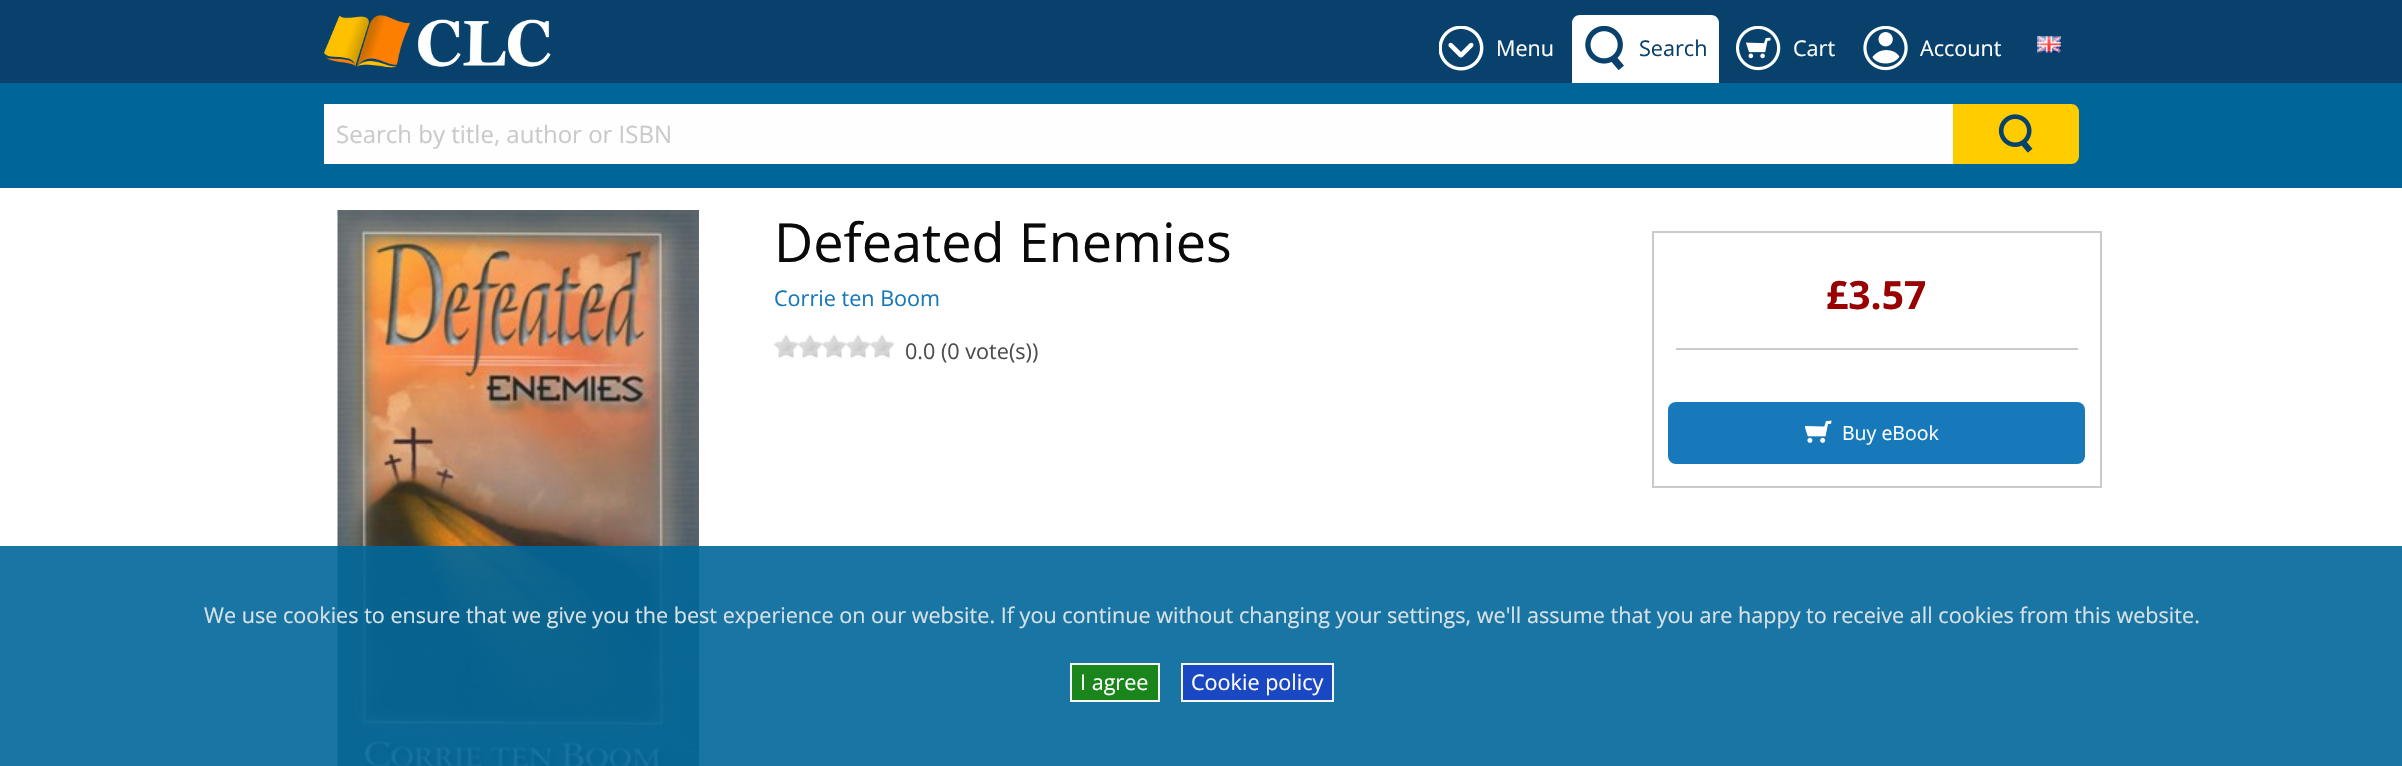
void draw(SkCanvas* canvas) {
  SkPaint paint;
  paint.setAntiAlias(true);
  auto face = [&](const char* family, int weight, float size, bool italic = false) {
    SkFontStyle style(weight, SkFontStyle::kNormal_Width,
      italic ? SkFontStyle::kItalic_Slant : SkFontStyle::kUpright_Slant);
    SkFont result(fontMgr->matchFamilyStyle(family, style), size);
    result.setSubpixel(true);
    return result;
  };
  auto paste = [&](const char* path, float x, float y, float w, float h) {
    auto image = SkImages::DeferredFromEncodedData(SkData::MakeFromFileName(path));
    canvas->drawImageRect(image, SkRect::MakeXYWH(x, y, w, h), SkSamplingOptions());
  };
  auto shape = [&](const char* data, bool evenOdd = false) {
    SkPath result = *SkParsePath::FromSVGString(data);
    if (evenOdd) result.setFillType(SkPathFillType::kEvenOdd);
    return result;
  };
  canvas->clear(0xffffffff);
  paint.setColor(0xff08416c);
  canvas->drawRect(SkRect::MakeXYWH(0, 0, 2402, 83), paint);
  paste("img/1.png", 324, 15, 227, 53);
  paste("img/2.png", 1439, 26, 45, 45);
  paint.setColor(0xffffffff);
  canvas->drawPath(shape("M1580 15H1711C1715.5 15 1719 18.5 1719 23V83H1572V23C1572 18.5 1575.5 15 1580 15Z"), paint);
  paste("img/3.png", 1585, 26, 39, 45);
  paste("img/4.png", 1736, 26, 45, 45);
  paste("img/5.png", 1863, 26, 45, 45);
  paste("img/6.png", 2037, 36, 24, 17);
  {
    const struct { float x, y, w, h; SkColor color; } items[] = {
      {0, 83, 2402, 105, 0xff006699},
      {324, 106, 1629, 56, 0xfffefefe},
      {324, 104, 1629, 2, 0xffffffff},
      {324, 162, 1629, 2, 0xffffffff},
    };
    for (auto [x, y, w, h, color] : items) {
      paint.setColor(color);
      canvas->drawRect(SkRect::MakeXYWH(x, y, w, h), paint);
    }
  }
  paint.setColor(0xffffcc00);
  canvas->drawPath(shape("M1953 104H2071C2075.5 104 2079 107.5 2079 112V156C2079 160.5 2075.5 164 2071 164H1953Z"), paint);
  paste("img/7.png", 1998, 114, 35, 39);
  paste("img/8.png", 337, 210, 362, 556);
  paste("img/9.png", 774, 334, 120, 25);
  paint.setStroke(true);
  paint.setStrokeWidth(2);
  paint.setColor(0xffcacaca);
  canvas->drawRect(SkRect::MakeXYWH(1653, 232, 448, 255), paint);
  paint.setStroke(false);
  canvas->drawRect(SkRect::MakeXYWH(1676, 348, 402, 2), paint);
  paint.setColor(0xff1779ba);
  canvas->drawRoundRect(SkRect::MakeXYWH(1668, 402, 417, 62), 8, 8, paint);
  paste("img/10.png", 1805, 420, 27, 23);
  paint.setColor(0xe6006699);
  canvas->drawRect(SkRect::MakeXYWH(0, 546, 2402, 220), paint);
  paint.setColor(0xff1a851a);
  canvas->drawRect(SkRect::MakeXYWH(1071, 664, 88, 37), paint);
  paint.setStroke(true);
  paint.setColor(0xfff6f6f6);
  canvas->drawRect(SkRect::MakeXYWH(1071, 664, 88, 37), paint);
  paint.setStroke(false);
  paint.setColor(0xff1a47c2);
  canvas->drawRect(SkRect::MakeXYWH(1182, 664, 151, 37), paint);
  paint.setStroke(true);
  paint.setColor(0xfff6f6f6);
  canvas->drawRect(SkRect::MakeXYWH(1182, 664, 151, 37), paint);
  auto f0 = face("Open Sans", 400, 21.6f);
  paint.setStroke(false);
  paint.setColor(0xfffefefe);
  canvas->drawString("Menu", 1496, 56, f0, paint);
  paint.setColor(0xff08416c);
  canvas->drawString("Search", 1639, 56, f0, paint);
  paint.setColor(0xfffefefe);
  canvas->drawString("Cart", 1793, 56, f0, paint);
  canvas->drawString("Account", 1920, 56, f0, paint);
  auto f1 = face("Open Sans", 400, 24);
  paint.setColor(0xffcacaca);
  canvas->drawString("Search by title, author or ISBN", 336, 143, f1, paint);
  auto f2 = face("Open Sans", 400, 54);
  paint.setColor(0xff0a0a0a);
  canvas->drawString("Defeated Enemies", 774, 262, f2, paint);
  paint.setColor(0xff1779ba);
  canvas->drawString("Corrie ten Boom", 774, 306, f0, paint);
  paint.setColor(0xff4d4d4d);
  canvas->drawString("0.0 (0 vote(s))", 905, 359, f0, paint);
  auto f3 = face("Open Sans", 700, 39);
  paint.setColor(0xff990000);
  canvas->drawString("£3.57", 1826, 309, f3, paint);
  auto f4 = face("Open Sans", 400, 19.5f);
  paint.setColor(0xfffefefe);
  canvas->drawString("Buy eBook", 1842, 440, f4, paint);
  paint.setColor(0xffd8e2e6);
  canvas->drawString("We use cookies to ensure that we give you the best experience on our website. If you continue without changing your settings, we'll assume that you are happy to receive all cookies from this website.", 204, 623, f0, paint);
  paint.setColor(0xfffefefe);
  canvas->drawString("I agree", 1080, 690, f0, paint);
  canvas->drawString("Cookie policy", 1191, 690, f0, paint);
}
